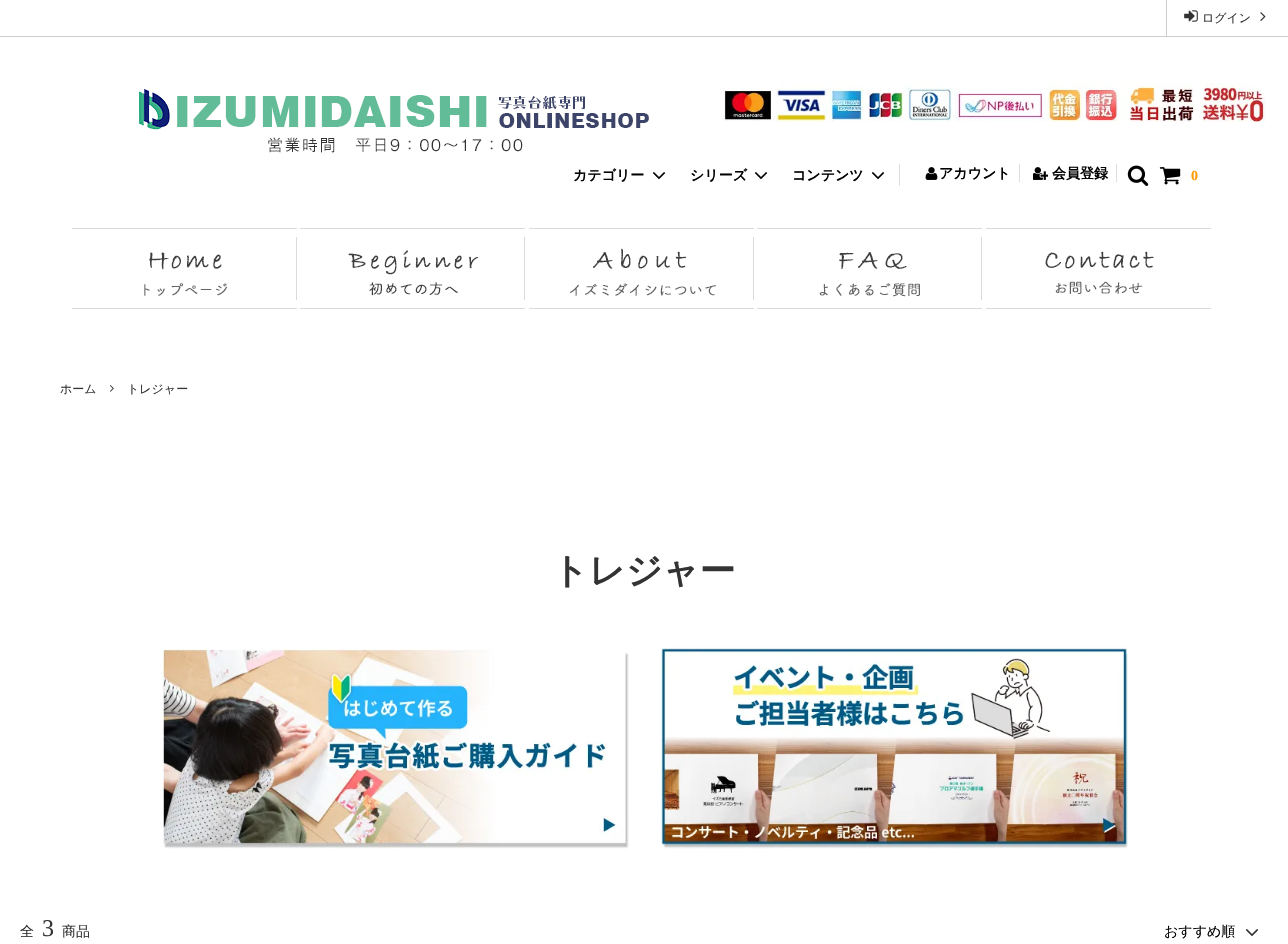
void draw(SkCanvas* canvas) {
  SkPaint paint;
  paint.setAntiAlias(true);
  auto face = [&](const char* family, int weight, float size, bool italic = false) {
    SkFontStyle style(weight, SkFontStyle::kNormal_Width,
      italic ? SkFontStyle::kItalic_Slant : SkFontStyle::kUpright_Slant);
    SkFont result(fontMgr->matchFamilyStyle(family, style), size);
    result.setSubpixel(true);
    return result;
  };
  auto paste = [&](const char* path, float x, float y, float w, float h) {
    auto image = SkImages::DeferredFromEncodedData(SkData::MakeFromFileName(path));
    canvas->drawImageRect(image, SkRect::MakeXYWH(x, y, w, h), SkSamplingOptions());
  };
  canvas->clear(0xffffffff);
  paint.setColor(0xffcccccc);
  canvas->drawRect(SkRect::MakeXYWH(0, 36, 1288, 1), paint);
  canvas->drawRect(SkRect::MakeXYWH(1166, 0, 1, 36), paint);
  paste("img/1.png", 1184, 10, 14, 12);
  paste("img/2.png", 1260, 12, 6, 9);
  paste("img/3.png", 138, 89, 511, 64);
  paste("img/4.png", 723, 83, 543, 39);
  paste("img/5.png", 652, 172, 14, 8);
  paste("img/5.png", 754, 172, 14, 8);
  paint.setColor(0xffdddddd);
  canvas->drawRect(SkRect::MakeXYWH(899, 164, 1, 22), paint);
  paste("img/5.png", 871, 172, 14, 8);
  canvas->drawRect(SkRect::MakeXYWH(1019, 164, 1, 18), paint);
  paste("img/6.png", 925, 167, 13, 13);
  canvas->drawRect(SkRect::MakeXYWH(1116, 164, 1, 18), paint);
  paste("img/7.png", 1033, 167, 15, 13);
  paste("img/8.png", 1127, 165, 22, 21);
  paste("img/9.png", 1159, 167, 22, 18);
  paste("img/10.png", 72, 228, 225, 81);
  paste("img/11.png", 300, 228, 225, 81);
  paste("img/12.png", 529, 228, 225, 81);
  paste("img/13.png", 757, 228, 225, 81);
  paste("img/14.png", 986, 228, 225, 81);
  paste("img/15.png", 110, 385, 4, 7);
  paste("img/16.png", 162, 649, 467, 200);
  paste("img/17.png", 660, 645, 468, 204);
  paste("img/18.png", 1245, 929, 14, 8);
  auto f0 = face("WenQuanYi Zen Hei", 500, 12);
  paint.setColor(0xff333333);
  canvas->drawString("ログイン", 1202, 22, f0, paint);
  auto f1 = face("WenQuanYi Zen Hei", 700, 14);
  paint.setColor(0xff000000);
  {
    const struct { const char* s; float x, y; } items[] = {
      {"カテゴリー", 573, 180},
      {"シリーズ", 690, 180},
      {"コンテンツ", 792, 180},
      {"アカウント", 939, 178},
      {"会員登録", 1052, 178},
    };
    for (auto [s, x, y] : items) {
      canvas->drawString(s, x, y, f1, paint);
    }
  }
  auto f2 = face("Liberation Serif", 700, 14);
  paint.setColor(0xffff9900);
  canvas->drawString("0", 1191, 180, f2, paint);
  paint.setColor(0xff333333);
  canvas->drawString("ホーム", 60, 393, f0, paint);
  canvas->drawString("トレジャー", 127, 393, f0, paint);
  auto f3 = face("WenQuanYi Zen Hei", 700, 36);
  canvas->drawString("トレジャー", 552, 583, f3, paint);
  auto f4 = face("WenQuanYi Zen Hei", 500, 14);
  canvas->drawString("全", 20, 936, f4, paint);
  auto f5 = face("Liberation Serif", 400, 24);
  canvas->drawString("3", 42, 936, f5, paint);
  canvas->drawString("商品", 62, 936, f4, paint);
  paint.setColor(0xff000000);
  canvas->drawString("おすすめ順", 1164, 936, f4, paint);
}
